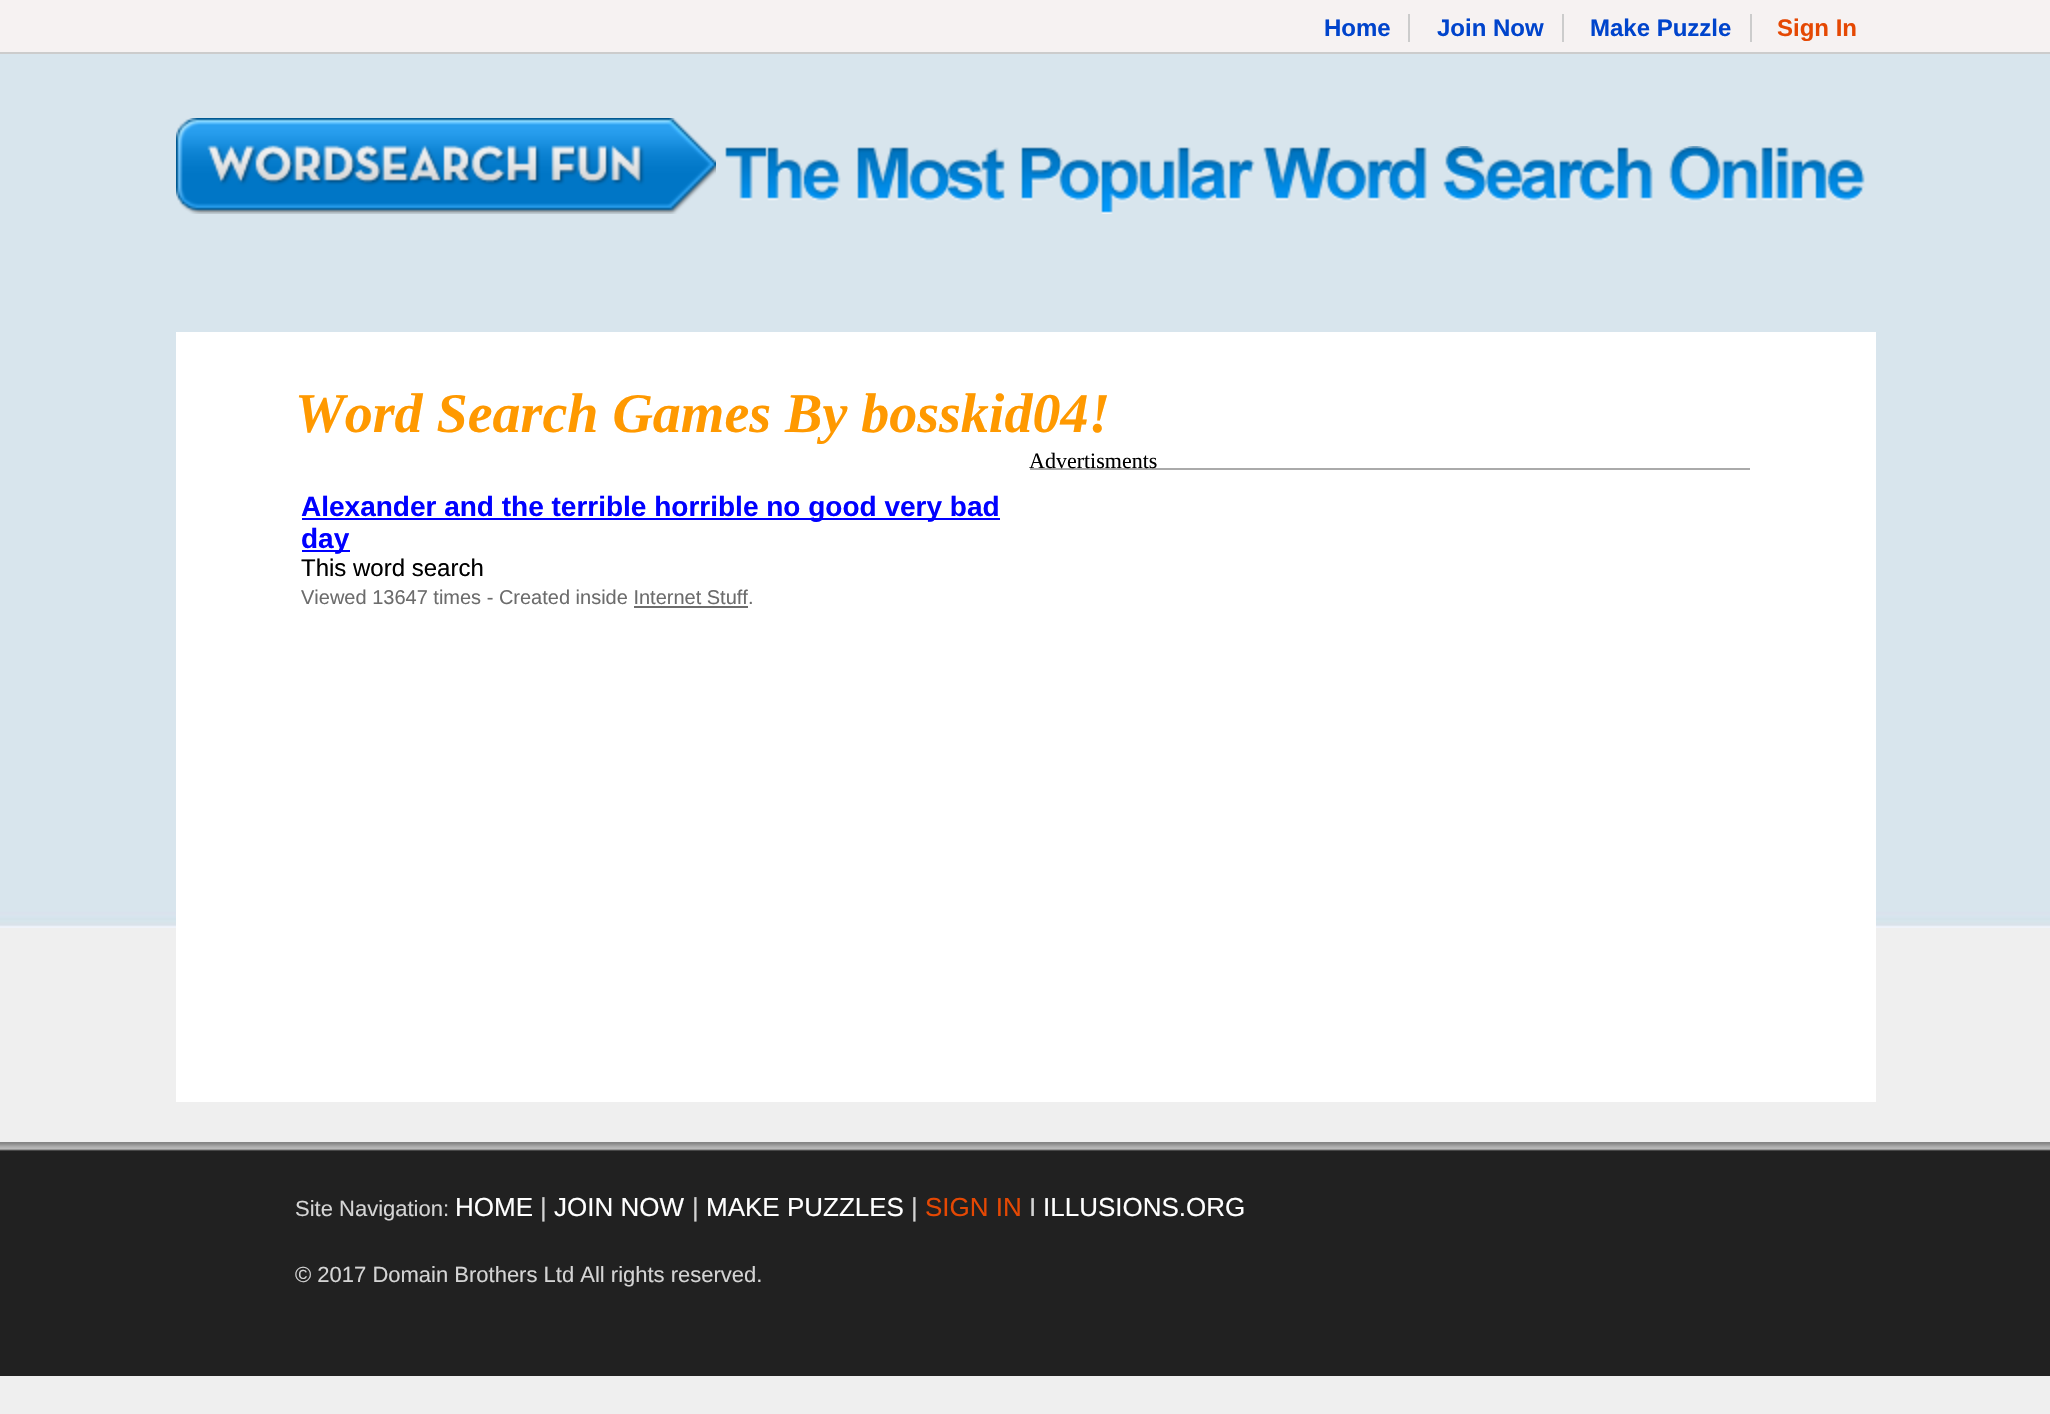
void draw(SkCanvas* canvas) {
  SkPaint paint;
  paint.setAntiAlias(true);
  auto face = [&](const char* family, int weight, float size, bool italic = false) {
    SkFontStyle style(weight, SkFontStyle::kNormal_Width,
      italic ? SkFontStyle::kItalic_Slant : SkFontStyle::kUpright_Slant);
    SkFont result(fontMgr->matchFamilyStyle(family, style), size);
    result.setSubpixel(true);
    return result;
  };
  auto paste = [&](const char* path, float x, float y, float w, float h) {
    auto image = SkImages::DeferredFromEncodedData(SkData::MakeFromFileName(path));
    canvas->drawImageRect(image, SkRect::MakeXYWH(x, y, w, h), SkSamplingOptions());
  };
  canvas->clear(0xffefefef);
  paste("img/1.png", 0, 54, 2050, 874);
  {
    const struct { float x, y, w, h; SkColor color; } items[] = {
      {0, 0, 2050, 52, 0xfff6f2f2},
      {0, 52, 2050, 2, 0xffcccccc},
      {1408, 14, 2, 28, 0xffcccccc},
      {1562, 14, 2, 28, 0xffcccccc},
      {1750, 14, 2, 28, 0xffcccccc},
    };
    for (auto [x, y, w, h, color] : items) {
      paint.setColor(color);
      canvas->drawRect(SkRect::MakeXYWH(x, y, w, h), paint);
    }
  }
  paste("img/2.png", 176, 118, 540, 96);
  paste("img/3.png", 725, 146, 1140, 68);
  {
    const struct { float x, y, w, h; SkColor color; } items[] = {
      {176, 332, 1700, 770, 0xffffffff},
      {1030, 468, 720, 2, 0xffaaaaaa},
      {302, 518, 698, 2, 0xff0000ff},
      {302, 550, 48, 2, 0xff0000ff},
      {634, 606, 114, 2, 0xff6c6c6c},
      {0, 1151, 2050, 225, 0xff212121},
    };
    for (auto [x, y, w, h, color] : items) {
      paint.setColor(color);
      canvas->drawRect(SkRect::MakeXYWH(x, y, w, h), paint);
    }
  }
  paste("img/4.png", 0, 1142, 2050, 9);
  auto f0 = face("Liberation Sans", 700, 24);
  paint.setColor(0xff0044cc);
  {
    const struct { const char* s; float x, y; } items[] = {
      {"Home", 1324, 36},
      {"Join Now", 1437, 36},
      {"Make Puzzle", 1590, 36},
    };
    for (auto [s, x, y] : items) {
      canvas->drawString(s, x, y, f0, paint);
    }
  }
  paint.setColor(0xffe54803);
  canvas->drawString("Sign In", 1777, 36, f0, paint);
  auto f1 = face("Liberation Serif", 700, 56, true);
  paint.setColor(0xffff9900);
  canvas->drawString("Word Search Games By bosskid04!", 295, 432, f1, paint);
  auto f2 = face("Liberation Serif", 400, 22);
  paint.setColor(0xff000000);
  canvas->drawString("Advertisments", 1029, 468, f2, paint);
  auto f3 = face("Liberation Sans", 700, 28);
  paint.setColor(0xff0000ff);
  canvas->drawString("Alexander and the terrible horrible no good very bad", 301, 516, f3, paint);
  canvas->drawString("day", 301, 548, f3, paint);
  auto f4 = face("Liberation Sans", 400, 24);
  paint.setColor(0xff000000);
  canvas->drawString("This word search", 301, 576, f4, paint);
  auto f5 = face("Liberation Sans", 400, 20);
  paint.setColor(0xff6c6c6c);
  canvas->drawString("Viewed 13647 times - Created inside Internet Stuff.", 301, 604, f5, paint);
  auto f6 = face("Liberation Sans", 400, 22);
  paint.setColor(0xffd4d4d4);
  canvas->drawString("Site Navigation:", 295, 1216, f6, paint);
  auto f7 = face("Liberation Sans", 400, 26);
  paint.setColor(0xffffffff);
  canvas->drawString("HOME", 455, 1216, f7, paint);
  paint.setColor(0xffd4d4d4);
  canvas->drawString("|", 540, 1216, f7, paint);
  paint.setColor(0xffffffff);
  canvas->drawString("JOIN NOW", 554, 1216, f7, paint);
  paint.setColor(0xffd4d4d4);
  canvas->drawString("|", 692, 1216, f7, paint);
  paint.setColor(0xffffffff);
  canvas->drawString("MAKE PUZZLES", 706, 1216, f7, paint);
  paint.setColor(0xffd4d4d4);
  canvas->drawString("|", 911, 1216, f7, paint);
  paint.setColor(0xffe54803);
  canvas->drawString("SIGN IN", 925, 1216, f7, paint);
  paint.setColor(0xffd4d4d4);
  canvas->drawString("I", 1029, 1216, f7, paint);
  paint.setColor(0xffffffff);
  canvas->drawString("ILLUSIONS.ORG", 1043, 1216, f7, paint);
  paint.setColor(0xffd4d4d4);
  canvas->drawString("© 2017 Domain Brothers Ltd All rights reserved.", 295, 1282, f6, paint);
}
